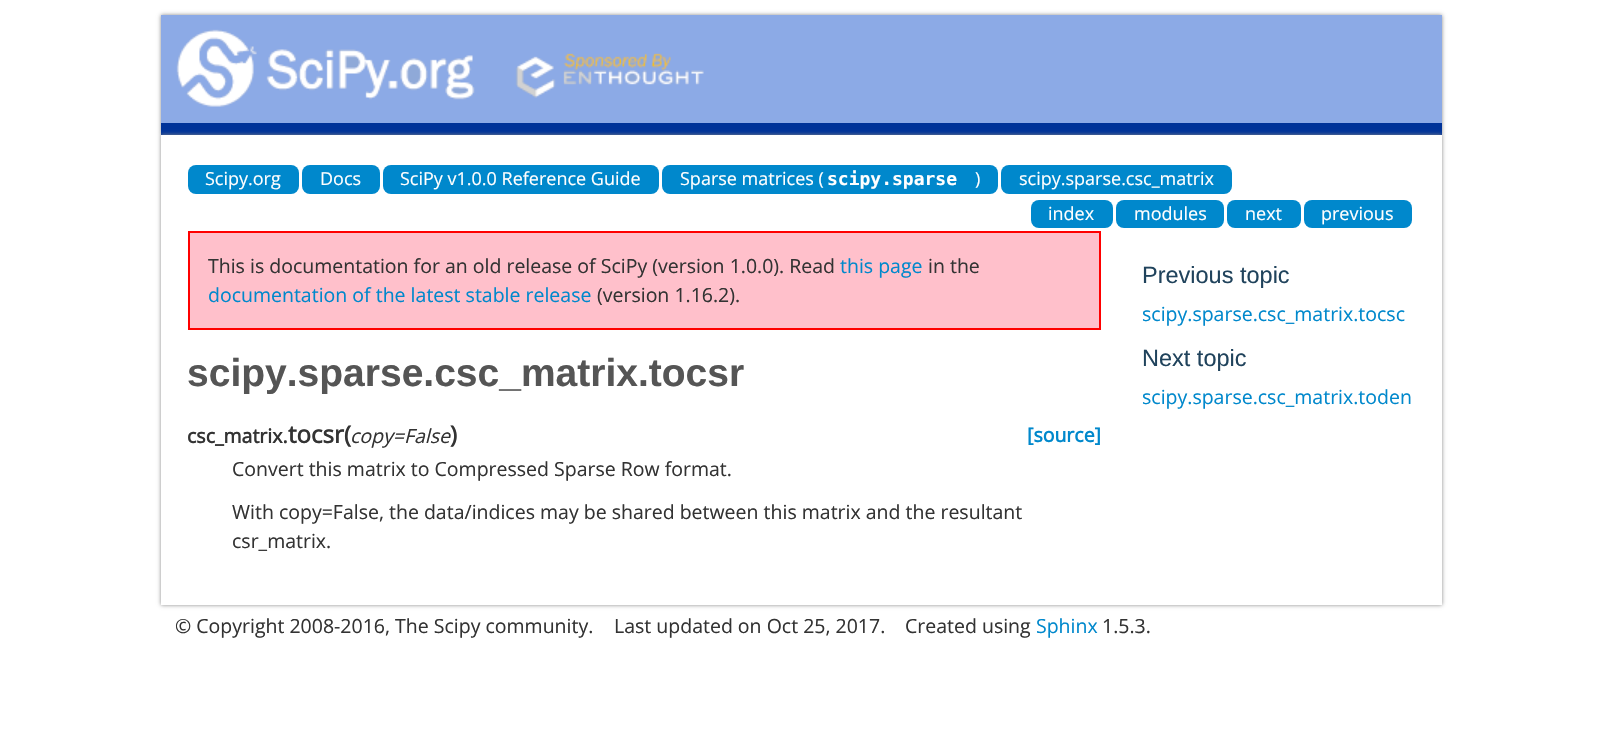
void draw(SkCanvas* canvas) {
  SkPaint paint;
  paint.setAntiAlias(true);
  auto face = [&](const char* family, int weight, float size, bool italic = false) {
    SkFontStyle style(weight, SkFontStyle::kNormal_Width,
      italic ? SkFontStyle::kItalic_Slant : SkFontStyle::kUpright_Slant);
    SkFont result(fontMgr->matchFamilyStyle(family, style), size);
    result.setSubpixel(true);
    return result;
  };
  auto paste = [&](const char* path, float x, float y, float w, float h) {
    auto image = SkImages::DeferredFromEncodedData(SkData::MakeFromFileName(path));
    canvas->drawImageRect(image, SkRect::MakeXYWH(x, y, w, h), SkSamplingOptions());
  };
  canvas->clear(0xffffffff);
  paint.setColor(0xff888888);
  paint.setMaskFilter(SkMaskFilter::MakeBlur(kNormal_SkBlurStyle, 2));
  canvas->drawRect(SkRect::MakeXYWH(161, 15, 1281, 120), paint);
  paint.setMaskFilter(nullptr);
  paint.setColor(0xff8caae6);
  canvas->drawRect(SkRect::MakeXYWH(161, 15, 1281, 108), paint);
  paint.setColor(0xff003399);
  canvas->drawRect(SkRect::MakeXYWH(161, 123, 1281, 12), paint);
  paste("img/1.png", 176, 29, 528, 78);
  paint.setColor(0xff888888);
  paint.setMaskFilter(SkMaskFilter::MakeBlur(kNormal_SkBlurStyle, 2));
  canvas->drawRect(SkRect::MakeXYWH(161, 135, 1281, 470), paint);
  paint.setMaskFilter(nullptr);
  paint.setColor(0xffffffff);
  canvas->drawRect(SkRect::MakeXYWH(161, 135, 1281, 470), paint);
  paint.setColor(0xff0088cc);
  canvas->drawRoundRect(SkRect::MakeXYWH(188, 165, 111, 29), 8, 8, paint);
  canvas->drawRoundRect(SkRect::MakeXYWH(302, 165, 78, 29), 8, 8, paint);
  canvas->drawRoundRect(SkRect::MakeXYWH(383, 165, 276, 29), 8, 8, paint);
  canvas->drawRoundRect(SkRect::MakeXYWH(662, 165, 336, 29), 8, 8, paint);
  canvas->drawRoundRect(SkRect::MakeXYWH(1001, 165, 231, 29), 8, 8, paint);
  canvas->drawRoundRect(SkRect::MakeXYWH(1031, 200, 82, 28), 8, 8, paint);
  canvas->drawRoundRect(SkRect::MakeXYWH(1116, 200, 108, 28), 8, 8, paint);
  canvas->drawRoundRect(SkRect::MakeXYWH(1227, 200, 74, 28), 8, 8, paint);
  canvas->drawRoundRect(SkRect::MakeXYWH(1304, 200, 108, 28), 8, 8, paint);
  paint.setColor(0xffffc0cb);
  canvas->drawRect(SkRect::MakeXYWH(189, 232, 911, 97), paint);
  paint.setStroke(true);
  paint.setStrokeWidth(2);
  paint.setColor(0xffff0000);
  canvas->drawRect(SkRect::MakeXYWH(189, 232, 911, 97), paint);
  auto f0 = face("Open Sans", 400, 18);
  paint.setStroke(false);
  paint.setColor(0xffffffff);
  {
    const struct { const char* s; float x, y; } items[] = {
      {"Scipy.org", 205, 185},
      {"Docs", 320, 185},
      {"SciPy v1.0.0 Reference Guide", 400, 185},
      {"Sparse matrices (", 680, 185},
    };
    for (auto [s, x, y] : items) {
      canvas->drawString(s, x, y, f0, paint);
    }
  }
  auto f1 = face("DejaVu Sans Mono", 700, 18);
  canvas->drawString("scipy.sparse", 827, 185, f1, paint);
  {
    const struct { const char* s; float x, y; } items[] = {
      {")", 975, 185},
      {"scipy.sparse.csc_matrix", 1019, 185},
      {"index", 1048, 220},
      {"modules", 1134, 220},
      {"next", 1245, 220},
      {"previous", 1321, 220},
    };
    for (auto [s, x, y] : items) {
      canvas->drawString(s, x, y, f0, paint);
    }
  }
  auto f2 = face("Open Sans", 400, 19.5f);
  paint.setColor(0xff333333);
  canvas->drawString("This is documentation for an old release of SciPy (version 1.0.0). Read", 208, 273, f2, paint);
  paint.setColor(0xff0088cc);
  canvas->drawString("this page", 840, 273, f2, paint);
  paint.setColor(0xff333333);
  canvas->drawString("in the", 928, 273, f2, paint);
  paint.setColor(0xff0088cc);
  canvas->drawString("documentation of the latest stable release", 208, 302, f2, paint);
  paint.setColor(0xff333333);
  canvas->drawString("(version 1.16.2).", 597, 302, f2, paint);
  auto f3 = face("Liberation Sans", 700, 39);
  paint.setColor(0xff555555);
  canvas->drawString("scipy.sparse.csc_matrix.tocsr", 187, 386, f3, paint);
  auto f4 = face("Open Sans", 700, 19.5f);
  paint.setColor(0xff333333);
  canvas->drawString("csc_matrix.", 187, 443, f4, paint);
  auto f5 = face("Open Sans", 700, 24);
  canvas->drawString("tocsr", 288, 443, f5, paint);
  auto f6 = face("Open Sans", 700, 23.5f);
  canvas->drawString("(", 344, 443, f6, paint);
  auto f7 = face("Open Sans", 400, 19.5f, true);
  canvas->drawString("copy=False", 350, 443, f7, paint);
  canvas->drawString(")", 450, 443, f6, paint);
  paint.setColor(0xff0088cc);
  canvas->drawString("[source]", 1027, 442, f4, paint);
  paint.setColor(0xff333333);
  {
    const struct { const char* s; float x, y; } items[] = {
      {"Convert this matrix to Compressed Sparse Row format.", 232, 476},
      {"With copy=False, the data/indices may be shared between this matrix and the resultant", 232, 519},
      {"csr_matrix.", 232, 548},
    };
    for (auto [s, x, y] : items) {
      canvas->drawString(s, x, y, f2, paint);
    }
  }
  auto f8 = face("Liberation Sans", 400, 23.5f);
  paint.setColor(0xff20435c);
  canvas->drawString("Previous topic", 1142, 283, f8, paint);
  paint.setColor(0xff0088cc);
  canvas->drawString("scipy.sparse.csc_matrix.tocsc", 1142, 321, f2, paint);
  paint.setColor(0xff20435c);
  canvas->drawString("Next topic", 1142, 366, f8, paint);
  paint.setColor(0xff0088cc);
  canvas->drawString("scipy.sparse.csc_matrix.toden", 1142, 404, f2, paint);
  paint.setColor(0xff333333);
  {
    const struct { const char* s; float x, y; } items[] = {
      {"© Copyright 2008-2016, The Scipy community.", 175, 633},
      {"Last updated on Oct 25, 2017.", 614, 633},
      {"Created using", 905, 633},
    };
    for (auto [s, x, y] : items) {
      canvas->drawString(s, x, y, f2, paint);
    }
  }
  paint.setColor(0xff0088cc);
  canvas->drawString("Sphinx", 1036, 633, f2, paint);
  paint.setColor(0xff333333);
  canvas->drawString("1.5.3.", 1102, 633, f2, paint);
}
